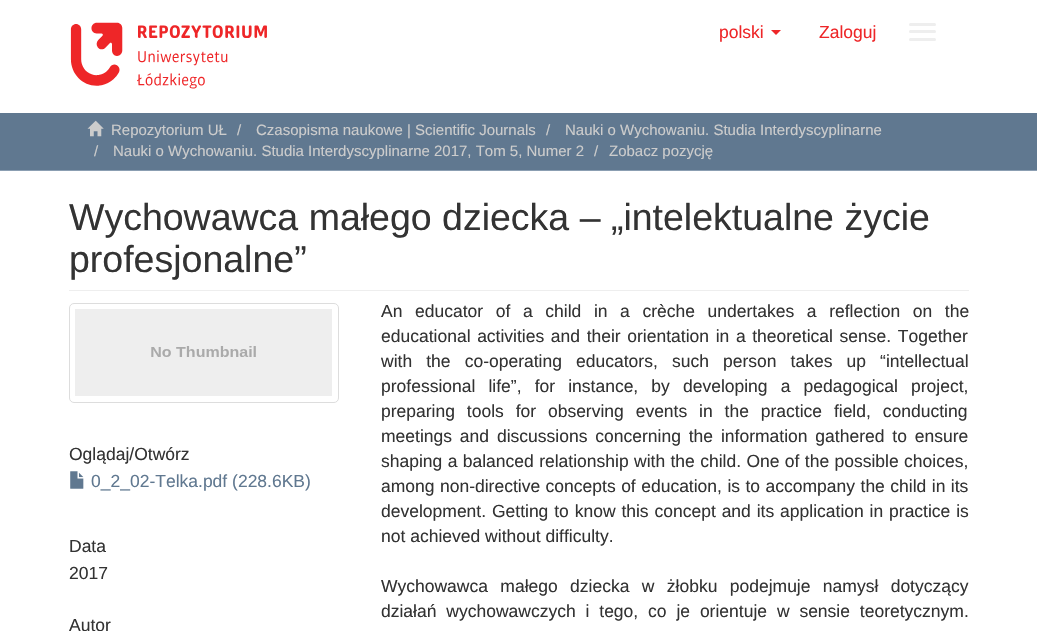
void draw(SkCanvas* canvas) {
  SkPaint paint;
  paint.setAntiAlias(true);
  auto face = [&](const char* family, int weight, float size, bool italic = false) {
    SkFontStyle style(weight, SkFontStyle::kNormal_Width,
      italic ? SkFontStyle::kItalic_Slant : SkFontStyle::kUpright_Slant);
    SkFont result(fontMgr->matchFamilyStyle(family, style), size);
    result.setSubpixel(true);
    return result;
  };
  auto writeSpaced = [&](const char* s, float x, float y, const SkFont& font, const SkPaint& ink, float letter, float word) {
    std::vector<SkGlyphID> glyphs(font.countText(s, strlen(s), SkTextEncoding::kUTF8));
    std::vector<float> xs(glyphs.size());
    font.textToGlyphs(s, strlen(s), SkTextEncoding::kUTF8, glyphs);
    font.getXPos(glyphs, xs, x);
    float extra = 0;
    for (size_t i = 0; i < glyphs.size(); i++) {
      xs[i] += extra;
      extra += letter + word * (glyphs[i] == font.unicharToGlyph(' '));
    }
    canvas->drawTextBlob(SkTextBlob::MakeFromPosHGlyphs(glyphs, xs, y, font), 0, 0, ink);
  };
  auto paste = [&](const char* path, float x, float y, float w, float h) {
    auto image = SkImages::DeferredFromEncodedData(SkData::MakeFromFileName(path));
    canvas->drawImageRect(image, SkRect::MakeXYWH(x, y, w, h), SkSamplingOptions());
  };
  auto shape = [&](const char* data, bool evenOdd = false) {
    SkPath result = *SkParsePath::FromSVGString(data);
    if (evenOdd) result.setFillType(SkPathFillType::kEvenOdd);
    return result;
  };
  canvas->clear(0xffffffff);
  paste("img/1.png", 70, 22, 197, 67);
  paint.setColor(0xffee2628);
  canvas->drawPath(shape("M771 30H781L776 35Z"), paint);
  paint.setColor(0xffeeeeee);
  canvas->drawRoundRect(SkRect::MakeXYWH(909, 23, 27, 3), 1.5f, 1.5f, paint);
  canvas->drawRoundRect(SkRect::MakeXYWH(909, 30, 27, 3), 1.5f, 1.5f, paint);
  canvas->drawRoundRect(SkRect::MakeXYWH(909, 38, 27, 3), 1.5f, 1.5f, paint);
  paint.setColor(0xff607890);
  canvas->drawRect(SkRect::MakeXYWH(0, 113, 1037, 57), paint);
  paint.setColor(0xff8b9eb2);
  canvas->drawRect(SkRect::MakeXYWH(0, 170, 1037, 1), paint);
  paste("img/2.png", 87, 120, 17, 17);
  paint.setColor(0xffeeeeee);
  canvas->drawRect(SkRect::MakeXYWH(69, 290, 900, 1), paint);
  paint.setStroke(true);
  paint.setStrokeWidth(1);
  paint.setColor(0xffdddddd);
  canvas->drawRoundRect(SkRect::MakeXYWH(69.5f, 303.5f, 269, 99), 4.5f, 4.5f, paint);
  paste("img/3.png", 75, 309, 257, 87);
  paste("img/4.png", 70, 471, 14, 18);
  auto f0 = face("Liberation Sans", 400, 17.5f);
  paint.setStroke(false);
  paint.setColor(0xffee2628);
  canvas->drawString("polski", 719, 38, f0, paint);
  canvas->drawString("Zaloguj", 819, 38, f0, paint);
  auto f1 = face("Liberation Sans", 400, 15);
  paint.setColor(0xffcccccc);
  {
    const struct { const char* s; float x, y; } items[] = {
      {"Repozytorium UŁ", 111, 135},
      {"/", 237, 135},
      {"Czasopisma naukowe | Scientific Journals", 256, 135},
      {"/", 546, 135},
      {"Nauki o Wychowaniu. Studia Interdyscyplinarne", 565, 135},
      {"/", 94, 156},
      {"Nauki o Wychowaniu. Studia Interdyscyplinarne 2017, Tom 5, Numer 2", 113, 156},
      {"/", 594, 156},
      {"Zobacz pozycję", 609, 156},
    };
    for (auto [s, x, y] : items) {
      canvas->drawString(s, x, y, f1, paint);
    }
  }
  auto f2 = face("Liberation Sans", 400, 37.5f);
  paint.setColor(0xff333333);
  canvas->drawString("Wychowawca małego dziecka – „intelektualne życie", 69, 230, f2, paint);
  canvas->drawString("profesjonalne”", 69, 272, f2, paint);
  canvas->drawString("Oglądaj/Otwórz", 69, 460, f0, paint);
  paint.setColor(0xff607890);
  canvas->drawString("0_2_02-Telka.pdf (228.6KB)", 91, 487, f0, paint);
  paint.setColor(0xff333333);
  {
    const struct { const char* s; float x, y; } items[] = {
      {"Data", 69, 552},
      {"2017", 69, 579},
      {"Autor", 69, 631},
    };
    for (auto [s, x, y] : items) {
      canvas->drawString(s, x, y, f0, paint);
    }
  }
  writeSpaced("An educator of a child in a crèche undertakes a reflection on the", 381, 317, f0, paint, 0, 7.75f);
  writeSpaced("educational activities and their orientation in a theoretical sense. Together", 381, 342, f0, paint, 0, 1.75f);
  writeSpaced("with the co-operating educators, such person takes up “intellectual", 381, 367, f0, paint, 0, 9.25f);
  writeSpaced("professional life”, for instance, by developing a pedagogical project,", 381, 392, f0, paint, 0, 8.25f);
  writeSpaced("preparing tools for observing events in the practice field, conducting", 381, 417, f0, paint, 0, 7);
  writeSpaced("meetings and discussions concerning the information gathered to ensure", 381, 442, f0, paint, 0, 3);
  writeSpaced("shaping a balanced relationship with the child. One of the possible choices,", 381, 467, f0, paint, 0, 0.5f);
  writeSpaced("among non-directive concepts of education, is to accompany the child in its", 381, 492, f0, paint, 0, 0.6f);
  writeSpaced("development. Getting to know this concept and its application in practice is", 381, 517, f0, paint, 0, 1);
  canvas->drawString("not achieved without difficulty.", 381, 542, f0, paint);
  writeSpaced("Wychowawca małego dziecka w żłobku podejmuje namysł dotyczący", 381, 592, f0, paint, 0, 7.5f);
  writeSpaced("działań wychowawczych i tego, co je orientuje w sensie teoretycznym.", 381, 617, f0, paint, 0, 5);
}
